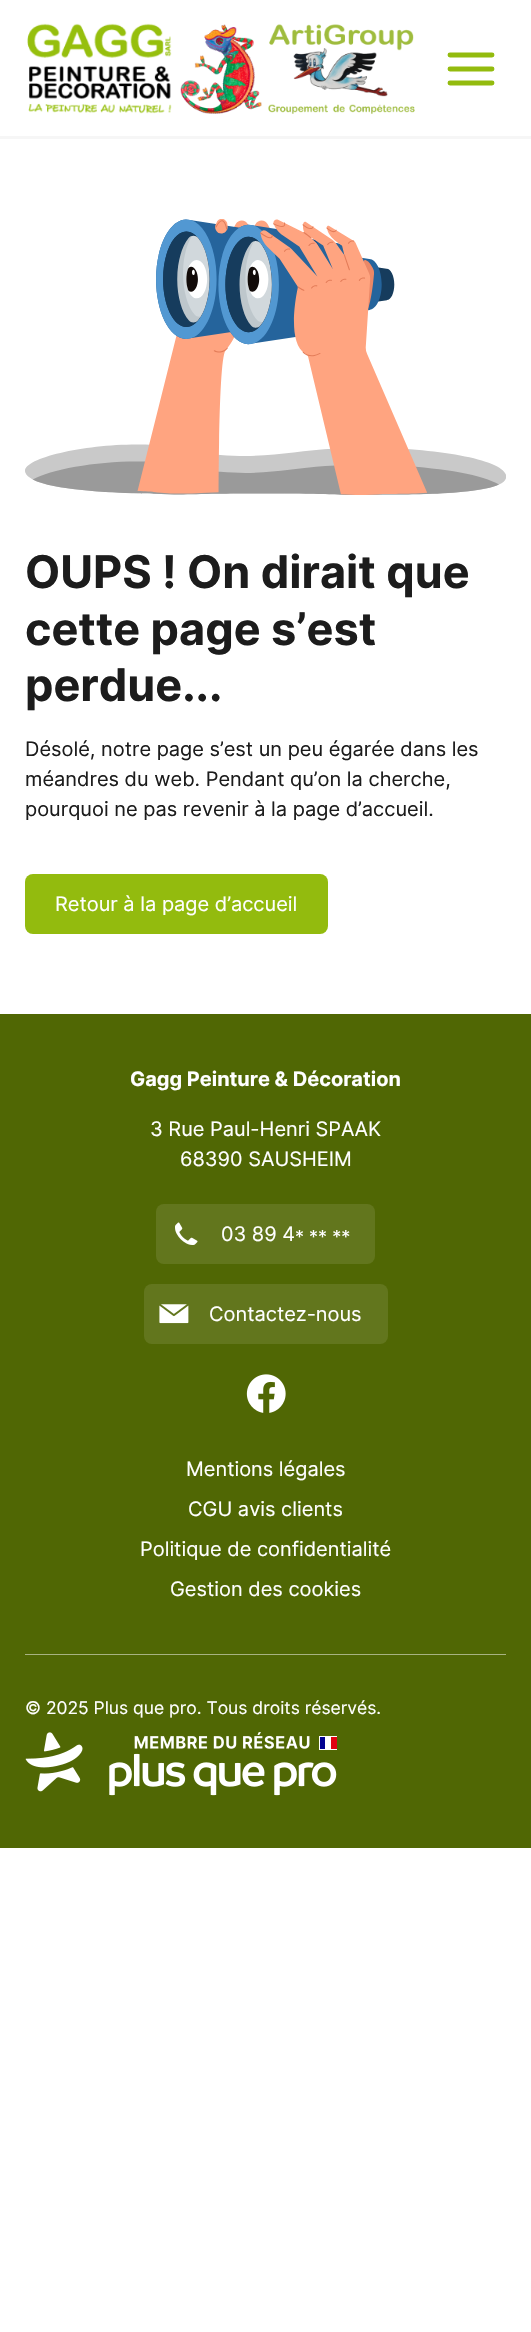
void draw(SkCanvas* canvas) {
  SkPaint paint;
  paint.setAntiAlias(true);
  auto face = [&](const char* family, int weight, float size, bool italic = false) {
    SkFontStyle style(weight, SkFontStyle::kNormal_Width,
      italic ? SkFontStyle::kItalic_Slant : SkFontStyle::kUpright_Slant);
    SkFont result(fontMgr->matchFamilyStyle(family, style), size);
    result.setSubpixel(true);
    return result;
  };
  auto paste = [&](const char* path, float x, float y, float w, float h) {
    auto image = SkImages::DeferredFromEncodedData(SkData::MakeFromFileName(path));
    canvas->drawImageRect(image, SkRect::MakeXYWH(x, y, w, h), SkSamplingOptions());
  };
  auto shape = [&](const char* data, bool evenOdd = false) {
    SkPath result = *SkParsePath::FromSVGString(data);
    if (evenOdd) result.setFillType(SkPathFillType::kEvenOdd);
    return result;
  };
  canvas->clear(0xffffffff);
  paint.setColor(0xfff6f6f6);
  canvas->drawRect(SkRect::MakeXYWH(0, 136, 531, 3), paint);
  paste("img/1.png", 27, 23, 388, 91);
  paint.setStroke(true);
  paint.setStrokeWidth(4.9f);
  paint.setStrokeCap(SkPaint::kRound_Cap);
  paint.setColor(0xff93bb0e);
  canvas->drawPath(shape("M450 55H492M450 69H492M450 83H492"), paint);
  paste("img/2.png", 25, 219, 481, 276);
  paint.setStroke(false);
  canvas->drawRoundRect(SkRect::MakeXYWH(25, 874, 303, 60), 8, 8, paint);
  paint.setColor(0xff506704);
  canvas->drawRect(SkRect::MakeXYWH(0, 1014, 531, 834), paint);
  paint.setColor(0xff62761d);
  canvas->drawRoundRect(SkRect::MakeXYWH(156, 1204, 219, 60), 8, 8, paint);
  paste("img/3.png", 175, 1222, 23, 23);
  canvas->drawRoundRect(SkRect::MakeXYWH(144, 1284, 244, 60), 8, 8, paint);
  paste("img/4.png", 159, 1304, 30, 20);
  paste("img/5.png", 246, 1374, 40, 39);
  paint.setColor(0xffa8b382);
  canvas->drawRect(SkRect::MakeXYWH(25, 1654, 481, 1), paint);
  paste("img/6.png", 25, 1732, 312, 64);
  auto f0 = face("Inter", 700, 45);
  paint.setColor(0xff1c1c1c);
  {
    const struct { const char* s; float x, y; } items[] = {
      {"OUPS ! On dirait que", 25, 588},
      {"cette page s’est", 25, 645},
      {"perdue...", 25, 701},
    };
    for (auto [s, x, y] : items) {
      canvas->drawString(s, x, y, f0, paint);
    }
  }
  auto f1 = face("Inter", 400, 20);
  {
    const struct { const char* s; float x, y; } items[] = {
      {"Désolé, notre page s’est un peu égarée dans les", 25, 756},
      {"méandres du web. Pendant qu’on la cherche,", 25, 786},
      {"pourquoi ne pas revenir à la page d’accueil.", 25, 816},
    };
    for (auto [s, x, y] : items) {
      canvas->drawString(s, x, y, f1, paint);
    }
  }
  paint.setColor(0xffffffff);
  canvas->drawString("Retour à la page d’accueil", 55, 911, f1, paint);
  auto f2 = face("Inter", 700, 20);
  canvas->drawString("Gagg Peinture & Décoration", 130, 1086, f2, paint);
  {
    const struct { const char* s; float x, y; } items[] = {
      {"3 Rue Paul-Henri SPAAK", 150, 1136},
      {"68390 SAUSHEIM", 180, 1166},
      {"03 89 4", 221, 1241},
    };
    for (auto [s, x, y] : items) {
      canvas->drawString(s, x, y, f1, paint);
    }
  }
  auto f3 = face("Inter", 400, 18);
  canvas->drawString("* ** **", 295, 1243, f3, paint);
  {
    const struct { const char* s; float x, y; } items[] = {
      {"Contactez-nous", 209, 1321},
      {"Mentions légales", 186, 1476},
      {"CGU avis clients", 188, 1516},
      {"Politique de confidentialité", 140, 1556},
      {"Gestion des cookies", 170, 1596},
    };
    for (auto [s, x, y] : items) {
      canvas->drawString(s, x, y, f1, paint);
    }
  }
  auto f4 = face("Inter", 400, 17.5f);
  canvas->drawString("© 2025 Plus que pro. Tous droits réservés.", 25, 1714, f4, paint);
}
